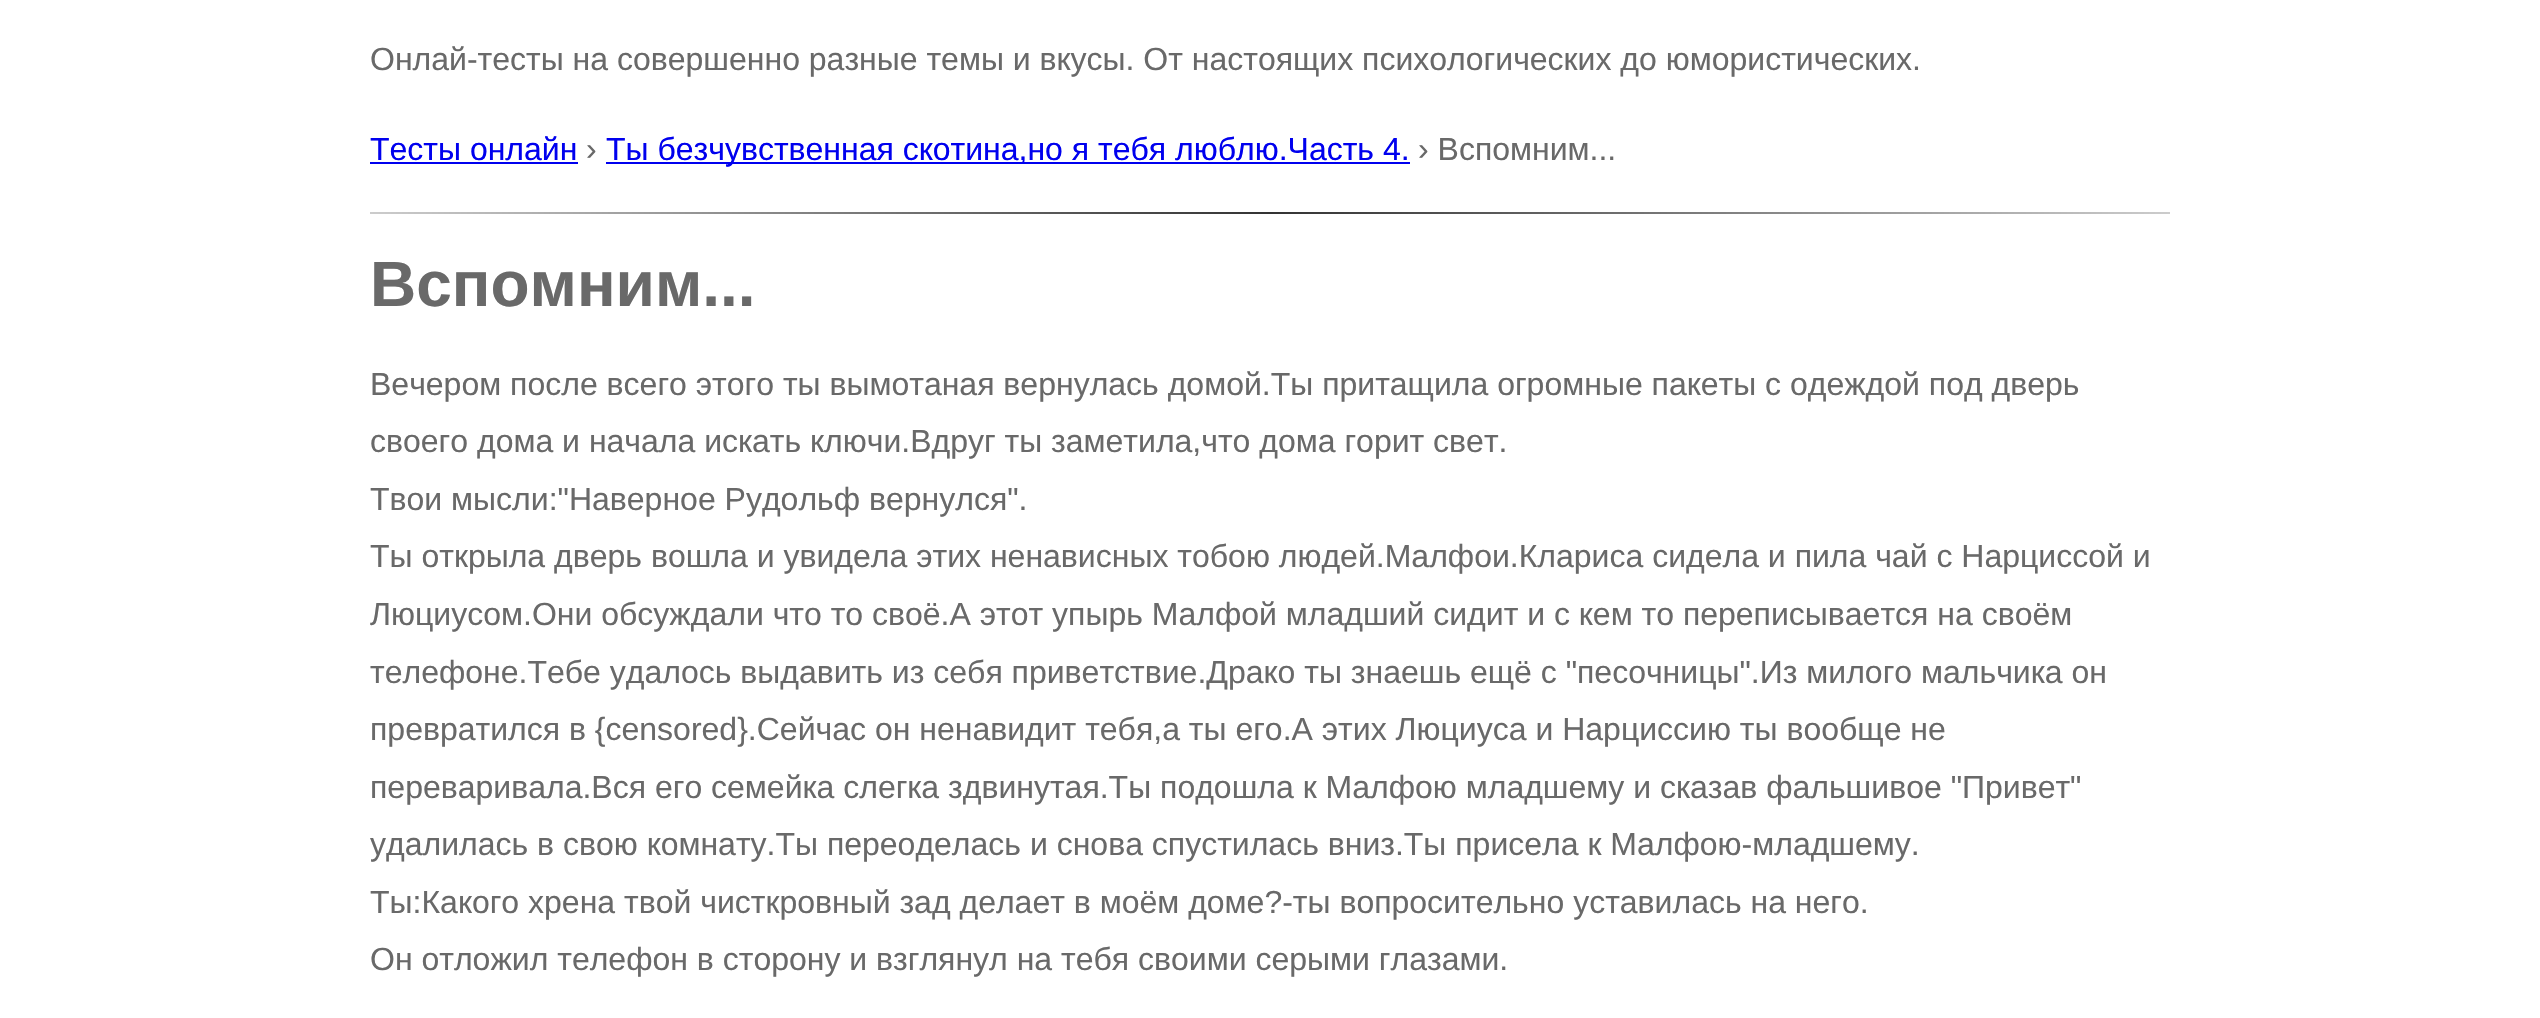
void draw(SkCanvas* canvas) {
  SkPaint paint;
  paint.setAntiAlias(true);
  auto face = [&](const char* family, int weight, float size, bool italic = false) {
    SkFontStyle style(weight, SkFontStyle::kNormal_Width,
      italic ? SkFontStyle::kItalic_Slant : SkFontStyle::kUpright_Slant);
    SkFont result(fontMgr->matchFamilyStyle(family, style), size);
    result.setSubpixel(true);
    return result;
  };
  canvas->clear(0xffffffff);
  paint.setColor(0xff0000ee);
  canvas->drawRect(SkRect::MakeXYWH(370, 162, 208, 2), paint);
  canvas->drawRect(SkRect::MakeXYWH(606, 162, 804, 2), paint);
  {
    const SkColor colors[] = {0xffcccccc, 0xff333333, 0xffcccccc};
    const float stops[] = {0, 0.5f, 1};
    const SkPoint ends[] = {{370, 213}, {2170, 213}};
    paint.setShader(SkGradientShader::MakeLinear(ends, colors, stops, 3, SkTileMode::kClamp));
    paint.setAlpha(255);
  }
  canvas->drawRect(SkRect::MakeXYWH(370, 212, 1800, 2), paint);
  auto f0 = face("Liberation Sans", 400, 32);
  paint.setShader(nullptr);
  paint.setColor(0xff696969);
  canvas->drawString("Онлай-тесты на совершенно разные темы и вкусы. От настоящих психологических до юмористических.", 370, 70, f0, paint);
  paint.setColor(0xff0000ee);
  canvas->drawString("Тесты онлайн", 370, 160, f0, paint);
  paint.setColor(0xff696969);
  canvas->drawString("›", 586, 160, f0, paint);
  paint.setColor(0xff0000ee);
  canvas->drawString("Ты безчувственная скотина,но я тебя люблю.Часть 4.", 606, 160, f0, paint);
  paint.setColor(0xff696969);
  canvas->drawString("› Вспомним...", 1418, 160, f0, paint);
  auto f1 = face("Liberation Sans", 700, 64);
  canvas->drawString("Вспомним...", 370, 306, f1, paint);
  {
    const struct { const char* s; float x, y; } items[] = {
      {"Вечером после всего этого ты вымотаная вернулась домой.Ты притащила огромные пакеты с одеждой под дверь", 370, 395},
      {"своего дома и начала искать ключи.Вдруг ты заметила,что дома горит свет.", 370, 452},
      {"Твои мысли:\"Наверное Рудольф вернулся\".", 370, 510},
      {"Ты открыла дверь вошла и увидела этих ненависных тобою людей.Малфои.Клариса сидела и пила чай с Нарциссой и", 370, 567},
      {"Люциусом.Они обсуждали что то своё.А этот упырь Малфой младший сидит и с кем то переписывается на своём", 370, 625},
      {"телефоне.Тебе удалось выдавить из себя приветствие.Драко ты знаешь ещё с \"песочницы\".Из милого мальчика он", 370, 683},
      {"превратился в {censored}.Сейчас он ненавидит тебя,а ты его.А этих Люциуса и Нарциссию ты вообще не", 370, 740},
      {"переваривала.Вся его семейка слегка здвинутая.Ты подошла к Малфою младшему и сказав фальшивое \"Привет\"", 370, 798},
      {"удалилась в свою комнату.Ты переоделась и снова спустилась вниз.Ты присела к Малфою-младшему.", 370, 855},
      {"Ты:Какого хрена твой чисткровный зад делает в моём доме?-ты вопросительно уставилась на него.", 370, 913},
      {"Он отложил телефон в сторону и взглянул на тебя своими серыми глазами.", 370, 970},
    };
    for (auto [s, x, y] : items) {
      canvas->drawString(s, x, y, f0, paint);
    }
  }
}
